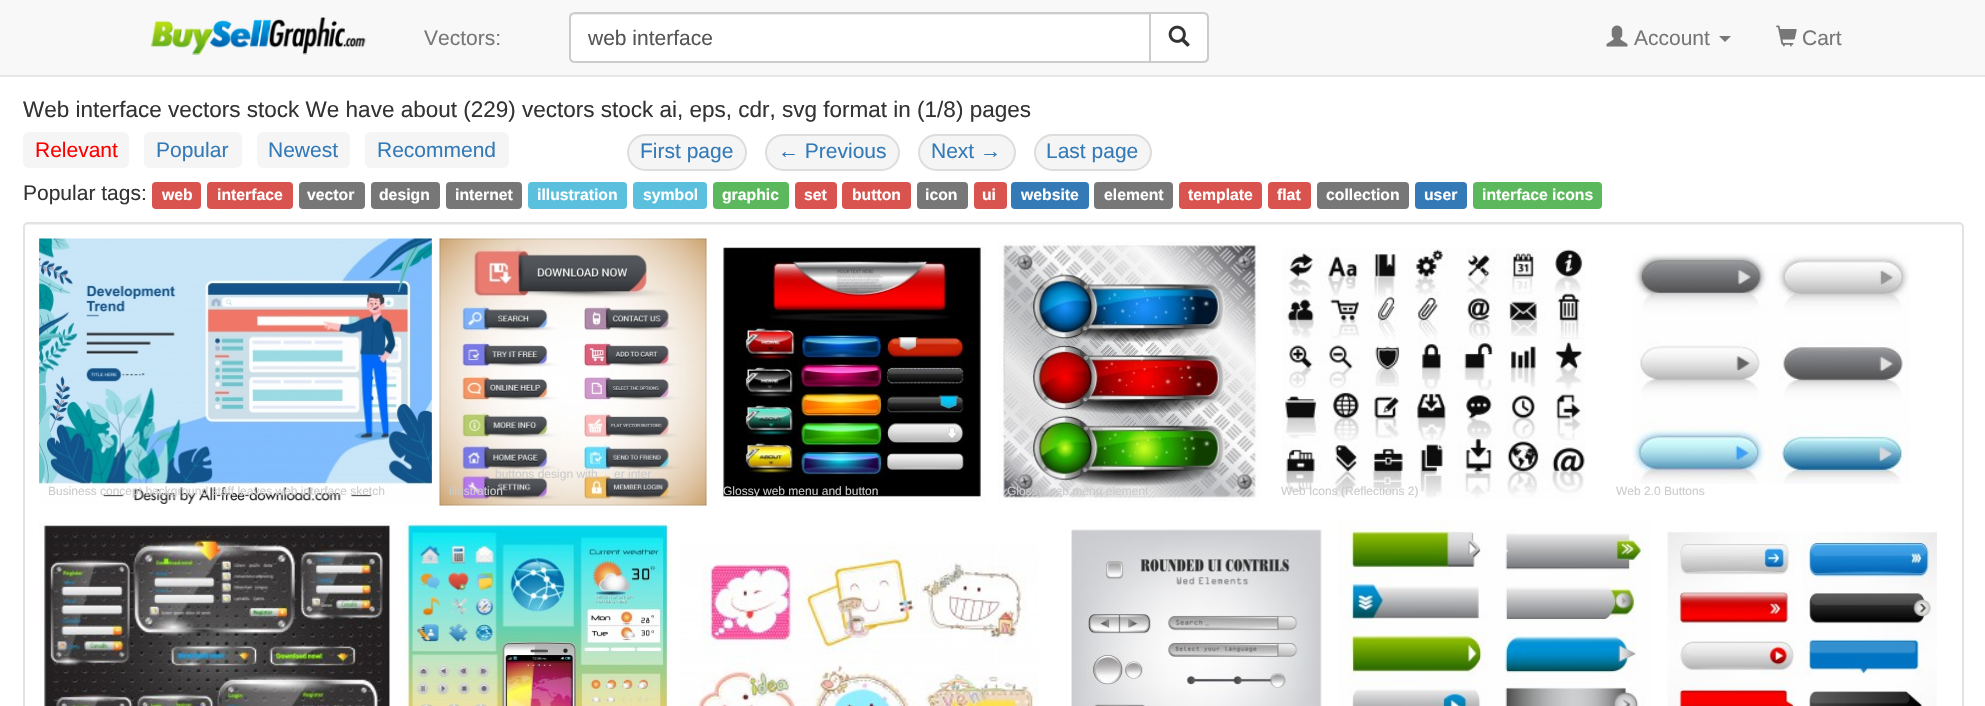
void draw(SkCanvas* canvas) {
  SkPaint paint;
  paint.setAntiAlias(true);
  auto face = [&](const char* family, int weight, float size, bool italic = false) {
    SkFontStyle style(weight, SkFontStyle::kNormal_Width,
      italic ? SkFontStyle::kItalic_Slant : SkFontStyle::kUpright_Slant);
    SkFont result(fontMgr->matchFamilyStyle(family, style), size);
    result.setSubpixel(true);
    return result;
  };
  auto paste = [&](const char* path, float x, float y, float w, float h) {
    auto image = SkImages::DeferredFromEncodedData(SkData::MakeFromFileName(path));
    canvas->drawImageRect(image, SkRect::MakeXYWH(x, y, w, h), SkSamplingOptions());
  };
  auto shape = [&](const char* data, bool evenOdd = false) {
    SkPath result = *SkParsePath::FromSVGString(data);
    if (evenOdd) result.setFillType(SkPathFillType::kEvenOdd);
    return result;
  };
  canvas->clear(0xffffffff);
  paint.setColor(0xfff8f8f8);
  canvas->drawRect(SkRect::MakeXYWH(0, 0, 1985, 75), paint);
  paint.setColor(0xffe7e7e7);
  canvas->drawRect(SkRect::MakeXYWH(0, 75, 1985, 2), paint);
  paste("img/1.png", 150, 17, 216, 38);
  paint.setColor(0xffffffff);
  canvas->drawPath(shape("M575 12H1151V63H575C571.5 63 569 60.5 569 57V18C569 14.5 571.5 12 575 12Z"), paint);
  paint.setColor(0xffececec);
  canvas->drawPath(shape("M574 15H1149V14H575C572 14 570 17 570 20C570 17 572 15 574 15Z"), paint);
  paint.setStroke(true);
  paint.setStrokeWidth(2);
  paint.setColor(0xffcccccc);
  canvas->drawPath(shape("M575 13H1150V62H575C572 62 570 60 570 57V18C570 15 572 13 575 13Z"), paint);
  paint.setStroke(false);
  paint.setColor(0xffffffff);
  canvas->drawPath(shape("M1150 13H1203C1206 13 1208 15 1208 18V57C1208 60 1206 62 1203 62H1150Z"), paint);
  paint.setStroke(true);
  paint.setColor(0xffcccccc);
  canvas->drawPath(shape("M1150 13H1203C1206 13 1208 15 1208 18V57C1208 60 1206 62 1203 62H1150Z"), paint);
  paste("img/2.png", 1168, 25, 22, 22);
  paste("img/3.png", 1606, 25, 22, 22);
  paint.setStroke(false);
  paint.setColor(0xff777777);
  canvas->drawPath(shape("M1719 36H1731L1725 42Z"), paint);
  paste("img/4.png", 1776, 25, 21, 22);
  paint.setColor(0xfff5f5f5);
  canvas->drawRoundRect(SkRect::MakeXYWH(23, 132, 106, 36), 6, 6, paint);
  canvas->drawRoundRect(SkRect::MakeXYWH(144, 132, 98, 36), 6, 6, paint);
  canvas->drawRoundRect(SkRect::MakeXYWH(257, 132, 93, 36), 6, 6, paint);
  canvas->drawRoundRect(SkRect::MakeXYWH(365, 132, 144, 36), 6, 6, paint);
  canvas->drawRoundRect(SkRect::MakeXYWH(628, 135, 118, 35), 17.5f, 17.5f, paint);
  paint.setStroke(true);
  paint.setColor(0xffdddddd);
  canvas->drawRoundRect(SkRect::MakeXYWH(628, 135, 118, 35), 17.5f, 17.5f, paint);
  paint.setStroke(false);
  paint.setColor(0xfff5f5f5);
  canvas->drawRoundRect(SkRect::MakeXYWH(766, 135, 133, 35), 17.5f, 17.5f, paint);
  paint.setStroke(true);
  paint.setColor(0xffdddddd);
  canvas->drawRoundRect(SkRect::MakeXYWH(766, 135, 133, 35), 17.5f, 17.5f, paint);
  paint.setStroke(false);
  paint.setColor(0xfff5f5f5);
  canvas->drawRoundRect(SkRect::MakeXYWH(919, 135, 96, 35), 17.5f, 17.5f, paint);
  paint.setStroke(true);
  paint.setColor(0xffdddddd);
  canvas->drawRoundRect(SkRect::MakeXYWH(919, 135, 96, 35), 17.5f, 17.5f, paint);
  paint.setStroke(false);
  paint.setColor(0xfff5f5f5);
  canvas->drawRoundRect(SkRect::MakeXYWH(1035, 135, 116, 35), 17.5f, 17.5f, paint);
  paint.setStroke(true);
  paint.setColor(0xffdddddd);
  canvas->drawRoundRect(SkRect::MakeXYWH(1035, 135, 116, 35), 17.5f, 17.5f, paint);
  paint.setStroke(false);
  paint.setColor(0xffd9534f);
  canvas->drawRoundRect(SkRect::MakeXYWH(152, 182, 49, 27), 4, 4, paint);
  canvas->drawRoundRect(SkRect::MakeXYWH(207, 182, 86, 27), 4, 4, paint);
  paint.setColor(0xff777777);
  canvas->drawRoundRect(SkRect::MakeXYWH(299, 182, 66, 27), 4, 4, paint);
  canvas->drawRoundRect(SkRect::MakeXYWH(371, 182, 69, 27), 4, 4, paint);
  canvas->drawRoundRect(SkRect::MakeXYWH(446, 182, 76, 27), 4, 4, paint);
  paint.setColor(0xff5bc0de);
  canvas->drawRoundRect(SkRect::MakeXYWH(528, 182, 99, 27), 4, 4, paint);
  canvas->drawRoundRect(SkRect::MakeXYWH(633, 182, 74, 27), 4, 4, paint);
  paint.setColor(0xff5cb85c);
  canvas->drawRoundRect(SkRect::MakeXYWH(713, 182, 76, 27), 4, 4, paint);
  paint.setColor(0xffd9534f);
  canvas->drawRoundRect(SkRect::MakeXYWH(795, 182, 42, 27), 4, 4, paint);
  canvas->drawRoundRect(SkRect::MakeXYWH(842, 182, 69, 27), 4, 4, paint);
  paint.setColor(0xff777777);
  canvas->drawRoundRect(SkRect::MakeXYWH(917, 182, 51, 27), 4, 4, paint);
  paint.setColor(0xffd9534f);
  canvas->drawRoundRect(SkRect::MakeXYWH(974, 182, 33, 27), 4, 4, paint);
  paint.setColor(0xff337ab7);
  canvas->drawRoundRect(SkRect::MakeXYWH(1011, 182, 78, 27), 4, 4, paint);
  paint.setColor(0xff777777);
  canvas->drawRoundRect(SkRect::MakeXYWH(1094, 182, 79, 27), 4, 4, paint);
  paint.setColor(0xffd9534f);
  canvas->drawRoundRect(SkRect::MakeXYWH(1179, 182, 83, 27), 4, 4, paint);
  canvas->drawRoundRect(SkRect::MakeXYWH(1268, 182, 43, 27), 4, 4, paint);
  paint.setColor(0xff777777);
  canvas->drawRoundRect(SkRect::MakeXYWH(1317, 182, 92, 27), 4, 4, paint);
  paint.setColor(0xff337ab7);
  canvas->drawRoundRect(SkRect::MakeXYWH(1415, 182, 52, 27), 4, 4, paint);
  paint.setColor(0xff5cb85c);
  canvas->drawRoundRect(SkRect::MakeXYWH(1473, 182, 129, 27), 4, 4, paint);
  paint.setColor(0xfff2f2f2);
  canvas->drawPath(shape("M27 225H1959C1961 225 1962 226 1962 228V227C1962 225 1961 224 1959 224H27C25 224 24 225 24 227V228C24 226 25 225 27 225Z"), paint);
  paint.setStroke(true);
  paint.setColor(0xffe3e3e3);
  canvas->drawRoundRect(SkRect::MakeXYWH(24, 223, 1939, 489), 4, 4, paint);
  paste("img/5.png", 39, 238, 393, 266);
  paste("img/6.png", 439, 238, 268, 268);
  paste("img/7.png", 722, 247, 263, 254);
  paste("img/8.png", 998, 242, 262, 260);
  paste("img/9.png", 1282, 248, 303, 251);
  paste("img/10.png", 1632, 253, 278, 231);
  paste("img/11.png", 39, 522, 352, 184);
  paste("img/12.png", 403, 520, 269, 186);
  paste("img/13.png", 680, 543, 358, 163);
  paste("img/14.png", 1071, 529, 251, 177);
  paste("img/15.png", 1338, 520, 312, 186);
  paste("img/16.png", 1667, 531, 270, 175);
  auto f0 = face("Liberation Sans", 400, 21);
  paint.setStroke(false);
  paint.setColor(0xff777777);
  canvas->drawString("Vectors:", 424, 45, f0, paint);
  paint.setColor(0xff555555);
  canvas->drawString("web interface", 588, 45, f0, paint);
  paint.setColor(0xff777777);
  canvas->drawString("Account", 1634, 45, f0, paint);
  canvas->drawString("Cart", 1802, 45, f0, paint);
  auto f1 = face("Liberation Sans", 400, 22.5f);
  paint.setColor(0xff333333);
  canvas->drawString("Web interface vectors stock We have about (229) vectors stock ai, eps, cdr, svg format in (1/8) pages", 23, 117, f1, paint);
  paint.setColor(0xffff0000);
  canvas->drawString("Relevant", 35, 157, f0, paint);
  paint.setColor(0xff337ab7);
  {
    const struct { const char* s; float x, y; } items[] = {
      {"Popular", 156, 157},
      {"Newest", 268, 157},
      {"Recommend", 377, 157},
      {"First page", 640, 158},
      {"← Previous", 778, 158},
      {"Next →", 931, 158},
      {"Last page", 1046, 158},
    };
    for (auto [s, x, y] : items) {
      canvas->drawString(s, x, y, f0, paint);
    }
  }
  paint.setColor(0xff333333);
  canvas->drawString("Popular tags:", 23, 200, f0, paint);
  auto f2 = face("Liberation Sans", 700, 15.75f);
  paint.setColor(0xffffffff);
  {
    const struct { const char* s; float x, y; } items[] = {
      {"web", 162, 200},
      {"interface", 217, 200},
      {"vector", 307, 200},
      {"design", 379, 200},
      {"internet", 455, 200},
      {"illustration", 537, 200},
      {"symbol", 643, 200},
      {"graphic", 722, 200},
      {"set", 804, 200},
      {"button", 852, 200},
      {"icon", 925, 200},
      {"ui", 982, 200},
      {"website", 1021, 200},
      {"element", 1104, 200},
      {"template", 1188, 200},
      {"flat", 1277, 200},
      {"collection", 1326, 200},
      {"user", 1424, 200},
      {"interface icons", 1482, 200},
    };
    for (auto [s, x, y] : items) {
      canvas->drawString(s, x, y, f2, paint);
    }
  }
  auto f3 = face("Liberation Sans", 400, 12);
  paint.setColor(0xffcccccc);
  {
    const struct { const char* s; float x, y; } items[] = {
      {"Business concept background staff leaves web interface sketch", 48, 495},
      {"buttons design with", 495, 478},
      {"er inter", 614, 478},
      {"illustration", 449, 495},
      {"Glossy web menu and button", 723, 495},
      {"Glossy web menu element", 1007, 495},
      {"Web Icons (Reflections 2)", 1281, 495},
      {"Web 2.0 Buttons", 1616, 495},
    };
    for (auto [s, x, y] : items) {
      canvas->drawString(s, x, y, f3, paint);
    }
  }
}
